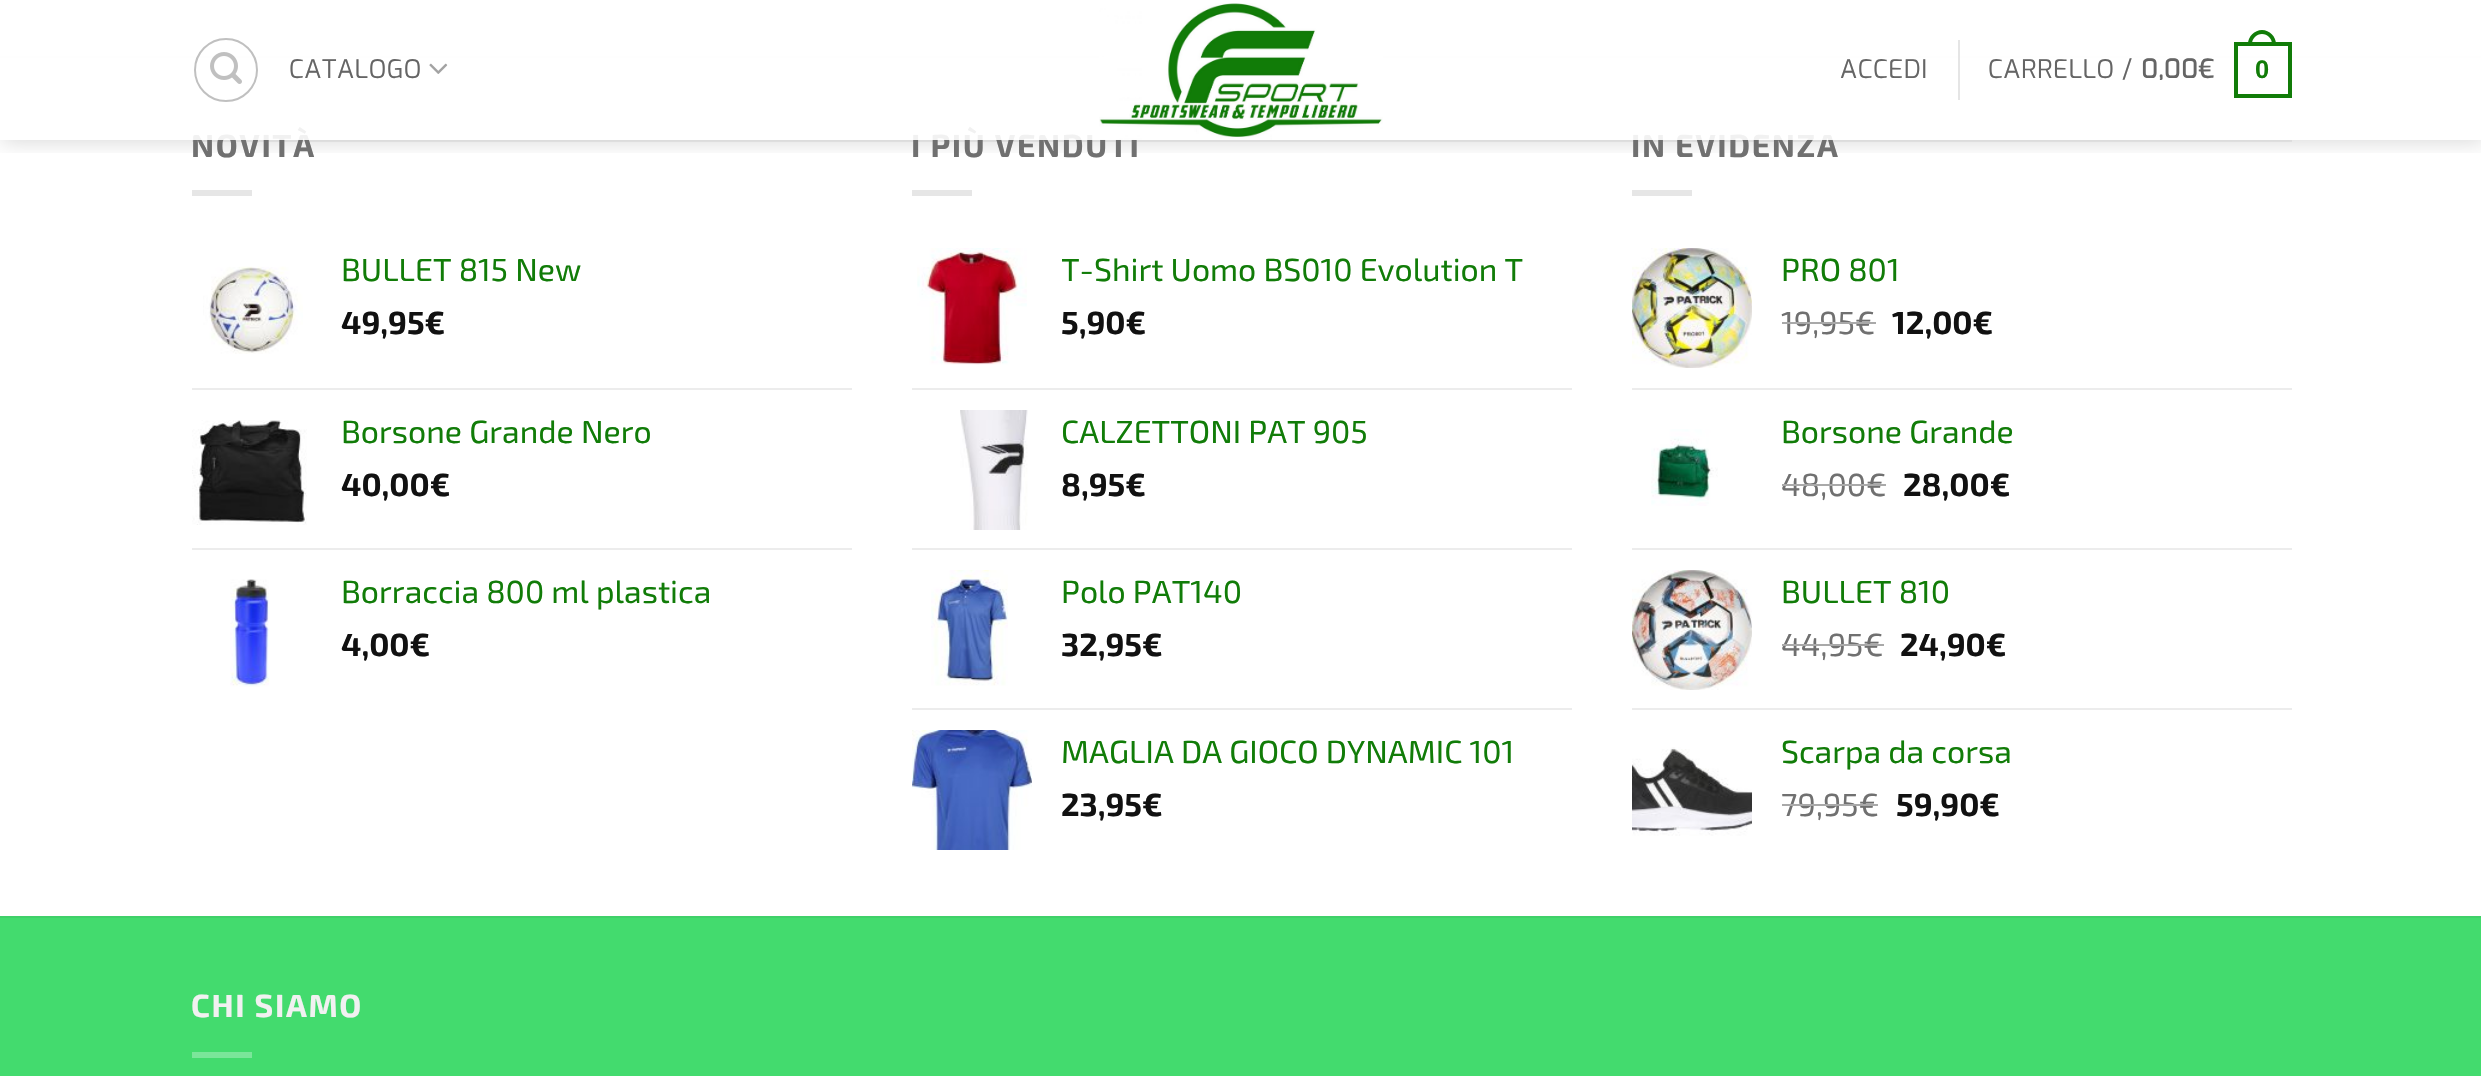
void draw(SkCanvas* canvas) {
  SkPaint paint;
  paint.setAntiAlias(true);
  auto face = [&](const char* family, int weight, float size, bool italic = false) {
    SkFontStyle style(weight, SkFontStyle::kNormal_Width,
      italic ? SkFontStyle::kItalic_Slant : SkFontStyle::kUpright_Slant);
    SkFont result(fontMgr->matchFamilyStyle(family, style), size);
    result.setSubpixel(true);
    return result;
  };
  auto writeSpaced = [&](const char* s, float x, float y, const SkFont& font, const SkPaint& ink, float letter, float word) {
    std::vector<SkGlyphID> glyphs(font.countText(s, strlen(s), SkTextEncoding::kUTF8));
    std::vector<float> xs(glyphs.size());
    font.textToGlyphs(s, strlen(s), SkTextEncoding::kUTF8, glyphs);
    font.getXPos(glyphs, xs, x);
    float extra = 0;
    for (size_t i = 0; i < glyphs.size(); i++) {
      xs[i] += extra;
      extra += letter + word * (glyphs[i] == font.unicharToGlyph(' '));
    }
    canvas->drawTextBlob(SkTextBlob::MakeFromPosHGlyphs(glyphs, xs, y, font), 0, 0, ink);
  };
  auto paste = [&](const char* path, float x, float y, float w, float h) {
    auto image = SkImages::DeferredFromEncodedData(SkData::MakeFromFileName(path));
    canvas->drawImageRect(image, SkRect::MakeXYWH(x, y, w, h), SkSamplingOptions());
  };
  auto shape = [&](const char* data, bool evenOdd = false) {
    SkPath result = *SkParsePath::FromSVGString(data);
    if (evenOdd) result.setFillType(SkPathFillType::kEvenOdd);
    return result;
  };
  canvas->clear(0xffffffff);
  paint.setColor(0xfff2f2f2);
  canvas->drawRect(SkRect::MakeXYWH(0, 56, 2481, 2), paint);
  canvas->save();
  canvas->clipRect(SkRect::MakeXYWH(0, 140, 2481, 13));
  paint.setColor(0x26000000);
  paint.setMaskFilter(SkMaskFilter::MakeBlur(kNormal_SkBlurStyle, 10));
  canvas->drawRect(SkRect::MakeXYWH(2, 2, 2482, 140), paint);
  paint.setMaskFilter(nullptr);
  canvas->restore();
  paint.setColor(0x1a707070);
  canvas->drawRect(SkRect::MakeXYWH(192, 140, 2100, 2), paint);
  paint.setColor(0xffe6e6e6);
  canvas->drawRect(SkRect::MakeXYWH(192, 190, 60, 6), paint);
  paste("img/4.png", 203, 266, 100, 88);
  paint.setColor(0xffececec);
  canvas->drawRect(SkRect::MakeXYWH(192, 388, 660, 2), paint);
  paste("img/5.png", 192, 420, 115, 105);
  canvas->drawRect(SkRect::MakeXYWH(192, 548, 660, 2), paint);
  paste("img/6.png", 230, 579, 40, 108);
  paint.setColor(0xffe6e6e6);
  canvas->drawRect(SkRect::MakeXYWH(912, 190, 60, 6), paint);
  paste("img/7.png", 917, 248, 110, 117);
  paint.setColor(0xffececec);
  canvas->drawRect(SkRect::MakeXYWH(912, 388, 660, 2), paint);
  paste("img/8.png", 960, 410, 68, 120);
  canvas->drawRect(SkRect::MakeXYWH(912, 548, 660, 2), paint);
  paste("img/9.png", 931, 570, 77, 116);
  canvas->drawRect(SkRect::MakeXYWH(912, 708, 660, 2), paint);
  paste("img/10.png", 912, 730, 120, 120);
  paint.setColor(0xffe6e6e6);
  canvas->drawRect(SkRect::MakeXYWH(1632, 190, 60, 6), paint);
  paste("img/11.png", 1632, 248, 120, 120);
  paint.setColor(0xffececec);
  canvas->drawRect(SkRect::MakeXYWH(1632, 388, 660, 2), paint);
  paste("img/12.png", 1651, 429, 67, 77);
  canvas->drawRect(SkRect::MakeXYWH(1632, 548, 660, 2), paint);
  paste("img/13.png", 1632, 570, 120, 120);
  canvas->drawRect(SkRect::MakeXYWH(1632, 708, 660, 2), paint);
  paste("img/14.png", 1632, 747, 120, 89);
  {
    const struct { float x, y, w, h; SkColor color; } items[] = {
      {0, 918, 2481, 158, 0xff43db6e},
      {0, 916, 2481, 2, 0xff40d069},
      {192, 1052, 60, 6, 0xff7be69a},
    };
    for (auto [x, y, w, h, color] : items) {
      paint.setColor(color);
      canvas->drawRect(SkRect::MakeXYWH(x, y, w, h), paint);
    }
  }
  auto f0 = face("Exo 2", 700, 32);
  paint.setColor(0xff707070);
  writeSpaced("NOVITÀ", 191, 157, f0, paint, 1.6f, 0);
  auto f1 = face("Exo 2", 400, 32);
  paint.setColor(0xff117c08);
  canvas->drawString("BULLET 815 New", 341, 281, f1, paint);
  paint.setColor(0xff111111);
  canvas->drawString("49,95€", 341, 334, f0, paint);
  paint.setColor(0xff117c08);
  canvas->drawString("Borsone Grande Nero", 341, 443, f1, paint);
  paint.setColor(0xff111111);
  canvas->drawString("40,00€", 341, 496, f0, paint);
  paint.setColor(0xff117c08);
  canvas->drawString("Borraccia 800 ml plastica", 341, 603, f1, paint);
  paint.setColor(0xff111111);
  canvas->drawString("4,00€", 341, 656, f0, paint);
  paint.setColor(0xff707070);
  writeSpaced("I PIÙ VENDUTI", 911, 157, f0, paint, 1.6f, 0);
  canvas->save();
  canvas->clipRect(SkRect::MakeXYWH(1062, 248, 510, 42));
  paint.setColor(0xff117c08);
  canvas->drawString("T-Shirt Uomo BS010 Evolution T", 1061, 281, f1, paint);
  canvas->restore();
  paint.setColor(0xff111111);
  canvas->drawString("5,90€", 1061, 334, f0, paint);
  paint.setColor(0xff117c08);
  canvas->drawString("CALZETTONI PAT 905", 1061, 443, f1, paint);
  paint.setColor(0xff111111);
  canvas->drawString("8,95€", 1061, 496, f0, paint);
  paint.setColor(0xff117c08);
  canvas->drawString("Polo PAT140", 1061, 603, f1, paint);
  paint.setColor(0xff111111);
  canvas->drawString("32,95€", 1061, 656, f0, paint);
  paint.setColor(0xff117c08);
  canvas->drawString("MAGLIA DA GIOCO DYNAMIC 101", 1061, 763, f1, paint);
  paint.setColor(0xff111111);
  canvas->drawString("23,95€", 1061, 816, f0, paint);
  paint.setColor(0xff707070);
  writeSpaced("IN EVIDENZA", 1631, 157, f0, paint, 1.6f, 0);
  paint.setColor(0xe6ffffff);
  canvas->drawRect(SkRect::MakeXYWH(0, 56, 2481, 84), paint);
  paint.setStroke(true);
  paint.setStrokeWidth(4);
  paint.setColor(0xff117c08);
  canvas->drawRect(SkRect::MakeXYWH(2236, 44, 54, 52), paint);
  paint.setStroke(false);
  canvas->drawPath(shape("M2262 30C2269.5 30 2276 36.5 2276 44V46H2248V44C2248 36.5 2254.5 30 2262 30ZM2262 34C2267.5 34 2272 38.5 2272 44V46H2252V44C2252 38.5 2256.5 34 2262 34Z", true), paint);
  auto f2 = face("Liberation Sans", 700, 25.5f);
  writeSpaced("0", 2255, 78, f2, paint, 0.5f, 0);
  auto f3 = face("Exo", 700, 25.5f);
  paint.setColor(0xff656565);
  writeSpaced("0,00€", 2141, 78, f3, paint, 0.5f, 0);
  auto f4 = face("Exo", 400, 25.5f);
  writeSpaced("CARRELLO /", 1988, 78, f4, paint, 0.5f, 0);
  paint.setColor(0xffe5e5e5);
  canvas->drawRect(SkRect::MakeXYWH(1958, 40, 2, 60), paint);
  paint.setColor(0xff656565);
  writeSpaced("ACCEDI", 1840, 78, f4, paint, 0.5f, 0);
  paste("img/2.png", 429, 63, 19, 11);
  writeSpaced("CATALOGO", 289, 78, f4, paint, 0.5f, 0);
  paint.setStroke(true);
  paint.setStrokeWidth(2);
  paint.setColor(0xffc0c0c0);
  canvas->drawCircle(226, 70, 31, paint);
  paste("img/1.png", 210, 52, 32, 32);
  paste("img/3.png", 1099, 3, 284, 137);
  paint.setStroke(false);
  paint.setColor(0xff117c08);
  canvas->drawString("PRO 801", 1781, 281, f1, paint);
  paint.setColor(0xff707070);
  canvas->drawString("19,95€", 1781, 334, f1, paint);
  paint.setColor(0xffa9a9a9);
  canvas->drawRect(SkRect::MakeXYWH(1782, 322, 94, 2), paint);
  paint.setColor(0xff111111);
  canvas->drawString("12,00€", 1892, 334, f0, paint);
  paint.setColor(0xff117c08);
  canvas->drawString("Borsone Grande", 1781, 443, f1, paint);
  paint.setColor(0xff707070);
  canvas->drawString("48,00€", 1781, 496, f1, paint);
  paint.setColor(0xffa9a9a9);
  canvas->drawRect(SkRect::MakeXYWH(1782, 484, 104, 2), paint);
  paint.setColor(0xff111111);
  canvas->drawString("28,00€", 1903, 496, f0, paint);
  paint.setColor(0xff117c08);
  canvas->drawString("BULLET 810", 1781, 603, f1, paint);
  paint.setColor(0xff707070);
  canvas->drawString("44,95€", 1781, 656, f1, paint);
  paint.setColor(0xffa9a9a9);
  canvas->drawRect(SkRect::MakeXYWH(1782, 644, 102, 2), paint);
  paint.setColor(0xff111111);
  canvas->drawString("24,90€", 1900, 656, f0, paint);
  paint.setColor(0xff117c08);
  canvas->drawString("Scarpa da corsa", 1781, 763, f1, paint);
  paint.setColor(0xff707070);
  canvas->drawString("79,95€", 1781, 816, f1, paint);
  paint.setColor(0xffa9a9a9);
  canvas->drawRect(SkRect::MakeXYWH(1782, 804, 96, 2), paint);
  paint.setColor(0xff111111);
  canvas->drawString("59,90€", 1896, 816, f0, paint);
  paint.setColor(0xfff1f1f1);
  writeSpaced("CHI SIAMO", 191, 1017, f0, paint, 1.6f, 0);
}
